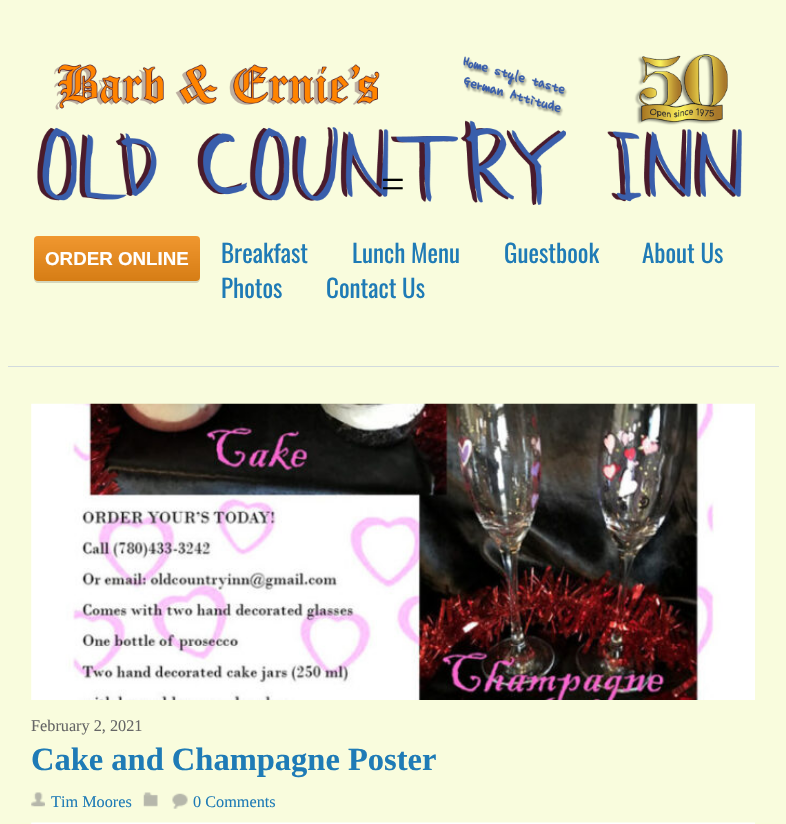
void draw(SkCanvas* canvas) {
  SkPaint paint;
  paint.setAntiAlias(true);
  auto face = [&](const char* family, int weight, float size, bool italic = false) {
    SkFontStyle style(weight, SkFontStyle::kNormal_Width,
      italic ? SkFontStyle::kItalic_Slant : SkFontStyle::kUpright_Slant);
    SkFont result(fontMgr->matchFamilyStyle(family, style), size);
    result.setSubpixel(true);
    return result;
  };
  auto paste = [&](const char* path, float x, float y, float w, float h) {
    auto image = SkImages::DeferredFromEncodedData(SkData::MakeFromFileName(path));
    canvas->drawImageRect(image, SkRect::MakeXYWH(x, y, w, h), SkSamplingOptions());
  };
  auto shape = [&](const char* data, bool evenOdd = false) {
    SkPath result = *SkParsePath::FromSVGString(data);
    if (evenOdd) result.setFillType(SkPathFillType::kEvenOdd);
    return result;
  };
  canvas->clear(0xfff9fcdd);
  paint.setColor(0xffd2dadd);
  canvas->drawRect(SkRect::MakeXYWH(8, 366, 771, 1), paint);
  paste("img/1.png", 37, 54, 705, 151);
  paint.setColor(0xffd4d6bc);
  canvas->drawPath(shape("M34 279C34 281 36 283 38 283H196C198 283 200 281 200 279V278C200 280 198 281 196 281H38C36 281 35 280 34 279Z"), paint);
  paint.setColor(0xffef8b17);
  canvas->drawRoundRect(SkRect::MakeXYWH(34, 236, 166, 45), 4, 4, paint);
  {
    const SkColor colors[] = {0x1a000000, 0x1affffff};
    const float stops[] = {0, 1};
    const SkPoint ends[] = {{117, 281}, {117, 236}};
    paint.setShader(SkGradientShader::MakeLinear(ends, colors, stops, 2, SkTileMode::kClamp));
    paint.setAlpha(255);
  }
  canvas->drawRoundRect(SkRect::MakeXYWH(34, 236, 166, 45), 4, 4, paint);
  paste("img/2.png", 31, 403, 724, 297);
  paste("img/3.png", 31, 792, 14, 15);
  paste("img/4.png", 143, 792, 15, 15);
  paste("img/5.png", 172, 793, 16, 16);
  paste("img/6.png", 31, 822, 724, 2);
  auto f0 = face("Liberation Serif", 400, 42);
  paint.setShader(nullptr);
  paint.setColor(0xff000000);
  canvas->drawString("=", 381, 198, f0, paint);
  auto f1 = face("Liberation Sans", 700, 18.75f);
  paint.setColor(0xffffffff);
  canvas->drawString("ORDER ONLINE", 45, 265, f1, paint);
  auto f2 = face("Oswald", 400, 25);
  paint.setColor(0xff1f7bb6);
  {
    const struct { const char* s; float x, y; } items[] = {
      {"Breakfast", 221, 263},
      {"Lunch Menu", 352, 263},
      {"Guestbook", 504, 263},
      {"About Us", 642, 263},
      {"Photos", 221, 298},
      {"Contact Us", 326, 298},
    };
    for (auto [s, x, y] : items) {
      canvas->drawString(s, x, y, f2, paint);
    }
  }
  auto f3 = face("Liberation Serif", 400, 16.25f);
  paint.setColor(0xff666666);
  canvas->drawString("February 2, 2021", 31, 731, f3, paint);
  auto f4 = face("Liberation Serif", 700, 32.5f);
  paint.setColor(0xff1f7bb6);
  canvas->drawString("Cake and Champagne Poster", 31, 770, f4, paint);
  canvas->drawString("Tim Moores", 51, 807, f3, paint);
  canvas->drawString("0 Comments", 193, 807, f3, paint);
}
